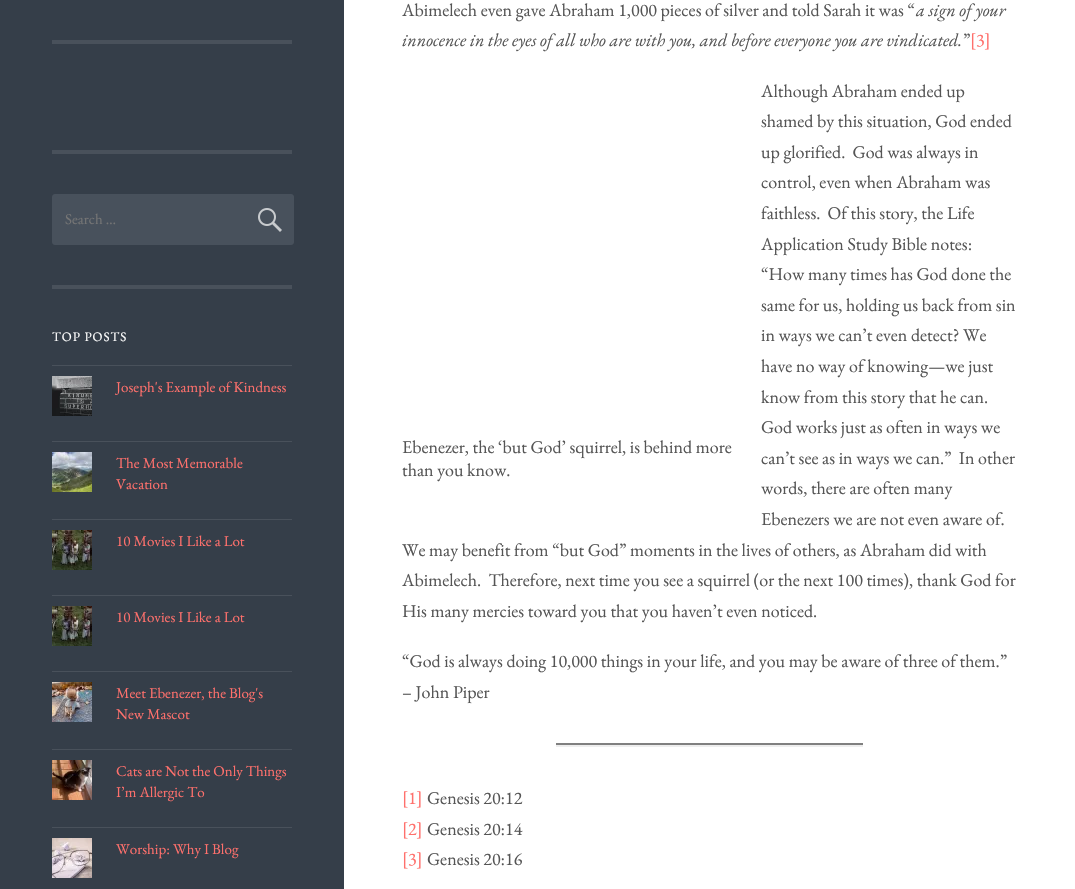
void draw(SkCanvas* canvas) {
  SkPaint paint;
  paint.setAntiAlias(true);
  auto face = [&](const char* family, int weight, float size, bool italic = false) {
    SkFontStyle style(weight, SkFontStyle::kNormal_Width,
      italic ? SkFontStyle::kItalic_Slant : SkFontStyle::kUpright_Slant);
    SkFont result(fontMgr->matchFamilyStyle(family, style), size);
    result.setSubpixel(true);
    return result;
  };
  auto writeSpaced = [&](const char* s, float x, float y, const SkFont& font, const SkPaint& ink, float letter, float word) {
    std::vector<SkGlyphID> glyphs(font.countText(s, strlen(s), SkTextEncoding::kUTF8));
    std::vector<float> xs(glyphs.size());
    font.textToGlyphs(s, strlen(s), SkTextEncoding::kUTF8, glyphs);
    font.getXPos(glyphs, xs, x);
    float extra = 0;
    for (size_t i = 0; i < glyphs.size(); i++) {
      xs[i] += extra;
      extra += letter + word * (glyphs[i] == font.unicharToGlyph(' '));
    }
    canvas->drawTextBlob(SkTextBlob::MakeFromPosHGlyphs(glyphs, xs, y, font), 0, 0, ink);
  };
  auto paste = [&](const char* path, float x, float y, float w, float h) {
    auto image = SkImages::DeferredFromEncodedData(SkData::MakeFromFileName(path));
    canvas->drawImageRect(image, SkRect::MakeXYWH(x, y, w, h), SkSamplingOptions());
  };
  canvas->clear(0xff353e49);
  {
    const struct { float x, y, w, h; SkColor color; } items[] = {
      {344, 0, 731, 889, 0xffffffff},
      {52, 40, 240, 4, 0xff49515b},
      {52, 150, 240, 4, 0xff49515b},
      {52, 285, 240, 4, 0xff49515b},
    };
    for (auto [x, y, w, h, color] : items) {
      paint.setColor(color);
      canvas->drawRect(SkRect::MakeXYWH(x, y, w, h), paint);
    }
  }
  paint.setColor(0xff48515c);
  canvas->drawRoundRect(SkRect::MakeXYWH(52.5f, 194.5f, 241, 50), 2.5f, 2.5f, paint);
  paint.setStroke(true);
  paint.setStrokeWidth(1);
  canvas->drawRoundRect(SkRect::MakeXYWH(52.5f, 194.5f, 241, 50), 2.5f, 2.5f, paint);
  paste("img/1.png", 258, 208, 24, 24);
  paint.setStroke(false);
  paint.setColor(0xff49515b);
  canvas->drawRect(SkRect::MakeXYWH(52, 365, 240, 1), paint);
  paste("img/2.png", 52, 376, 40, 40);
  canvas->drawRect(SkRect::MakeXYWH(52, 441, 240, 1), paint);
  paste("img/3.png", 52, 452, 40, 40);
  canvas->drawRect(SkRect::MakeXYWH(52, 519, 240, 1), paint);
  paste("img/4.png", 52, 530, 40, 40);
  canvas->drawRect(SkRect::MakeXYWH(52, 595, 240, 1), paint);
  paste("img/4.png", 52, 606, 40, 40);
  canvas->drawRect(SkRect::MakeXYWH(52, 671, 240, 1), paint);
  paste("img/5.png", 52, 682, 40, 40);
  canvas->drawRect(SkRect::MakeXYWH(52, 749, 240, 1), paint);
  paste("img/6.png", 52, 760, 40, 40);
  canvas->drawRect(SkRect::MakeXYWH(52, 827, 240, 1), paint);
  paste("img/7.png", 52, 838, 40, 40);
  paint.setColor(0xffeeeeee);
  canvas->drawRect(SkRect::MakeXYWH(556, 745, 307, 2), paint);
  paint.setColor(0xff808080);
  canvas->drawRect(SkRect::MakeXYWH(556, 743, 307, 2), paint);
  auto f0 = face("EB Garamond", 400, 15);
  paint.setColor(0xff757575);
  canvas->drawString("Search …", 65, 224, f0, paint);
  auto f1 = face("EB Garamond", 400, 13);
  paint.setColor(0xffffffff);
  writeSpaced("TOP POSTS", 52, 341, f1, paint, 1, 0);
  paint.setColor(0xffff706c);
  {
    const struct { const char* s; float x, y; } items[] = {
      {"Joseph's Example of Kindness", 116, 392},
      {"The Most Memorable", 116, 468},
      {"Vacation", 116, 489},
      {"10 Movies I Like a Lot", 116, 546},
      {"10 Movies I Like a Lot", 116, 622},
      {"Meet Ebenezer, the Blog's", 116, 698},
      {"New Mascot", 116, 719},
      {"Cats are Not the Only Things", 116, 776},
      {"I’m Allergic To", 116, 797},
      {"Worship: Why I Blog", 116, 854},
    };
    for (auto [s, x, y] : items) {
      canvas->drawString(s, x, y, f0, paint);
    }
  }
  auto f2 = face("EB Garamond", 400, 18);
  paint.setColor(0xff555555);
  canvas->drawString("Abimelech even gave Abraham 1,000 pieces of silver and told Sarah it was “", 402, 16, f2, paint);
  auto f3 = face("EB Garamond", 400, 18, true);
  canvas->drawString("a sign of your", 916, 16, f3, paint);
  canvas->drawString("innocence in the eyes of all who are with you, and before everyone you are vindicated.", 402, 46, f3, paint);
  canvas->drawString("”", 963, 46, f2, paint);
  paint.setColor(0xffff706c);
  canvas->drawString("[3]", 970, 46, f2, paint);
  paint.setColor(0xff555555);
  {
    const struct { const char* s; float x, y; } items[] = {
      {"Although Abraham ended up", 761, 97},
      {"shamed by this situation, God ended", 761, 127},
      {"up glorified.  God was always in", 761, 158},
      {"control, even when Abraham was", 761, 188},
      {"faithless.  Of this story, the Life", 761, 219},
      {"Application Study Bible notes:", 761, 250},
      {"“How many times has God done the", 761, 280},
      {"same for us, holding us back from sin", 761, 311},
      {"in ways we can’t even detect? We", 761, 341},
      {"have no way of knowing—we just", 761, 372},
      {"know from this story that he can.", 761, 403},
      {"God works just as often in ways we", 761, 433},
      {"can’t see as in ways we can.”  In other", 761, 464},
      {"words, there are often many", 761, 494},
      {"Ebenezers we are not even aware of.", 761, 525},
      {"We may benefit from “but God” moments in the lives of others, as Abraham did with", 402, 556},
      {"Abimelech.  Therefore, next time you see a squirrel (or the next 100 times), thank God for", 402, 586},
      {"His many mercies toward you that you haven’t even noticed.", 402, 617},
      {"Ebenezer, the ‘but God’ squirrel, is behind more", 402, 453},
      {"than you know.", 402, 476},
      {"“God is always doing 10,000 things in your life, and you may be aware of three of them.”", 402, 667},
      {"– John Piper", 402, 698},
    };
    for (auto [s, x, y] : items) {
      canvas->drawString(s, x, y, f2, paint);
    }
  }
  paint.setColor(0xffff706c);
  canvas->drawString("[1]", 402, 804, f2, paint);
  paint.setColor(0xff555555);
  canvas->drawString("Genesis 20:12", 427, 804, f2, paint);
  paint.setColor(0xffff706c);
  canvas->drawString("[2]", 402, 835, f2, paint);
  paint.setColor(0xff555555);
  canvas->drawString("Genesis 20:14", 427, 835, f2, paint);
  paint.setColor(0xffff706c);
  canvas->drawString("[3]", 402, 865, f2, paint);
  paint.setColor(0xff555555);
  canvas->drawString("Genesis 20:16", 427, 865, f2, paint);
}
